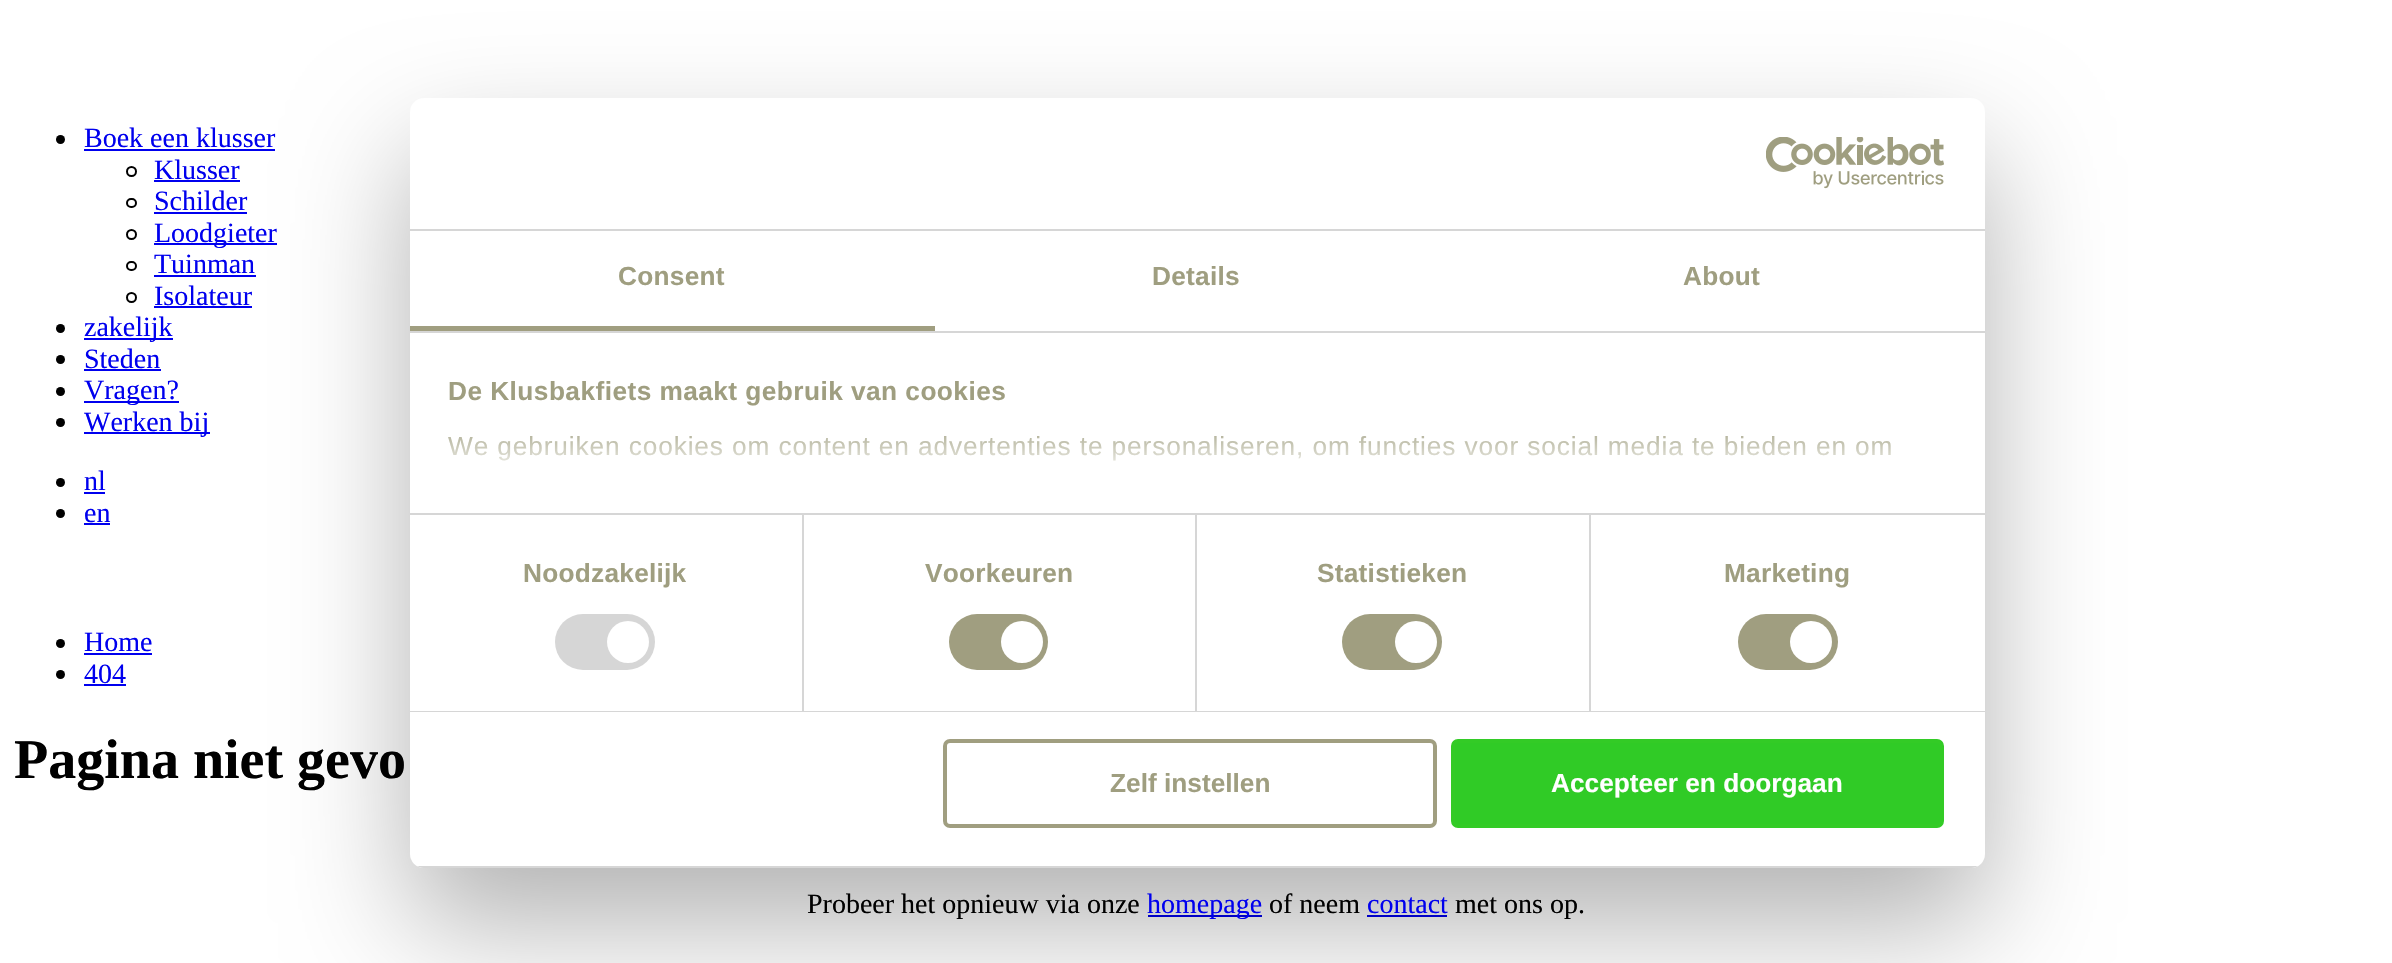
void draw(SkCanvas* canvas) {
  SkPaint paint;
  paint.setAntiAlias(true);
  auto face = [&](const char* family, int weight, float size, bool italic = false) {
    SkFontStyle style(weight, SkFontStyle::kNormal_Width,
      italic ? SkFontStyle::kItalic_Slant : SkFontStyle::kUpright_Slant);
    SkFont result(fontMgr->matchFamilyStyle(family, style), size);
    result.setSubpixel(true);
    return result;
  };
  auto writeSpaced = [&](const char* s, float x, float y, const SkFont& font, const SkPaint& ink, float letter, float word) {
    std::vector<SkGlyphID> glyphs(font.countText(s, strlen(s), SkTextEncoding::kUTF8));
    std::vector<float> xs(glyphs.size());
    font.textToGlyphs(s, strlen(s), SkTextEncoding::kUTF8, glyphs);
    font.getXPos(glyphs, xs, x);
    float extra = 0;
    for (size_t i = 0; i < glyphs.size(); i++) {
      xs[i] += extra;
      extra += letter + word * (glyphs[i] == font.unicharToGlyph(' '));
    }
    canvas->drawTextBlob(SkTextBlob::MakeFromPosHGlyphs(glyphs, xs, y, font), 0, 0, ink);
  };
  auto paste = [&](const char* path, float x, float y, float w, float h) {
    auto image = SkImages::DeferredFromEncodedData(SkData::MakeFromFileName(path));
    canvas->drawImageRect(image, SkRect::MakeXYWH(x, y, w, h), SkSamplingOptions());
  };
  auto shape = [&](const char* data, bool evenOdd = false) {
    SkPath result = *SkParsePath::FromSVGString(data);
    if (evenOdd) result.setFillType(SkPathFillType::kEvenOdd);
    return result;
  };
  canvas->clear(0xffffffff);
  paint.setColor(0xff000000);
  canvas->drawCircle(60.5f, 139.5f, 4.5f, paint);
  paint.setColor(0xff0000ee);
  canvas->drawRect(SkRect::MakeXYWH(84, 149, 191, 2), paint);
  paint.setStroke(true);
  paint.setStrokeWidth(2);
  paint.setColor(0xff000000);
  canvas->drawCircle(131.5f, 171.5f, 4.5f, paint);
  paint.setStroke(false);
  paint.setColor(0xff0000ee);
  canvas->drawRect(SkRect::MakeXYWH(154, 180, 86, 2), paint);
  paint.setStroke(true);
  paint.setColor(0xff000000);
  canvas->drawRoundRect(SkRect::MakeXYWH(127, 199, 9, 8), 4, 4, paint);
  paint.setStroke(false);
  paint.setColor(0xff0000ee);
  canvas->drawRect(SkRect::MakeXYWH(154, 212, 93, 2), paint);
  paint.setStroke(true);
  paint.setColor(0xff000000);
  canvas->drawCircle(131.5f, 234.5f, 4.5f, paint);
  paint.setStroke(false);
  paint.setColor(0xff0000ee);
  canvas->drawRect(SkRect::MakeXYWH(154, 243, 123, 2), paint);
  paint.setStroke(true);
  paint.setColor(0xff000000);
  canvas->drawRoundRect(SkRect::MakeXYWH(127, 262, 9, 8), 4, 4, paint);
  paint.setStroke(false);
  paint.setColor(0xff0000ee);
  canvas->drawRect(SkRect::MakeXYWH(154, 275, 102, 2), paint);
  paint.setStroke(true);
  paint.setColor(0xff000000);
  canvas->drawCircle(131.5f, 297.5f, 4.5f, paint);
  paint.setStroke(false);
  paint.setColor(0xff0000ee);
  canvas->drawRect(SkRect::MakeXYWH(154, 306, 98, 2), paint);
  paint.setColor(0xff000000);
  canvas->drawCircle(60.5f, 328.5f, 4.5f, paint);
  paint.setColor(0xff0000ee);
  canvas->drawRect(SkRect::MakeXYWH(84, 338, 89, 2), paint);
  paint.setColor(0xff000000);
  canvas->drawCircle(60.5f, 359.5f, 4.5f, paint);
  paint.setColor(0xff0000ee);
  canvas->drawRect(SkRect::MakeXYWH(84, 369, 77, 2), paint);
  paint.setColor(0xff000000);
  canvas->drawCircle(60.5f, 391.5f, 4.5f, paint);
  paint.setColor(0xff0000ee);
  canvas->drawRect(SkRect::MakeXYWH(84, 401, 95, 2), paint);
  paint.setColor(0xff000000);
  canvas->drawCircle(60.5f, 422.5f, 4.5f, paint);
  paint.setColor(0xff0000ee);
  canvas->drawRect(SkRect::MakeXYWH(84, 432, 126, 2), paint);
  paint.setColor(0xff000000);
  canvas->drawCircle(60.5f, 482.5f, 4.5f, paint);
  paint.setColor(0xff0000ee);
  canvas->drawRect(SkRect::MakeXYWH(84, 492, 21, 2), paint);
  paint.setColor(0xff000000);
  canvas->drawCircle(60.5f, 513.5f, 4.5f, paint);
  {
    const struct { float x, y, w, h; SkColor color; } items[] = {
      {84, 523, 26, 2, 0xff0000ee},
      {1148, 915, 114, 2, 0xff0000ee},
      {1367, 915, 80, 2, 0xff0000ee},
    };
    for (auto [x, y, w, h, color] : items) {
      paint.setColor(color);
      canvas->drawRect(SkRect::MakeXYWH(x, y, w, h), paint);
    }
  }
  paint.setColor(0x4d000000);
  paint.setMaskFilter(SkMaskFilter::MakeBlur(kNormal_SkBlurStyle, 59.5f));
  canvas->drawRoundRect(SkRect::MakeXYWH(410, 154, 1575, 770), 14, 14, paint);
  paint.setMaskFilter(nullptr);
  paint.setColor(0xffffffff);
  canvas->drawRoundRect(SkRect::MakeXYWH(410, 98, 1575, 770), 14, 14, paint);
  paint.setColor(0xffd6d6d6);
  canvas->drawRect(SkRect::MakeXYWH(410, 229, 1575, 2), paint);
  paste("img/1.png", 1766, 137, 178, 52);
  {
    const struct { float x, y, w, h; SkColor color; } items[] = {
      {410, 331, 1575, 2, 0xffd6d6d6},
      {410, 326, 525, 5, 0xffa09e80},
      {410, 513, 1575, 2, 0xffd6d6d6},
      {410, 711, 1575, 1, 0xffd6d6d6},
      {802, 515, 2, 196, 0xffd6d6d6},
    };
    for (auto [x, y, w, h, color] : items) {
      paint.setColor(color);
      canvas->drawRect(SkRect::MakeXYWH(x, y, w, h), paint);
    }
  }
  canvas->drawRoundRect(SkRect::MakeXYWH(555, 614, 100, 56), 28, 28, paint);
  paint.setColor(0xffffffff);
  canvas->drawCircle(628, 642, 21, paint);
  paint.setColor(0xffd6d6d6);
  canvas->drawRect(SkRect::MakeXYWH(1195, 515, 2, 196), paint);
  paint.setColor(0xffa09e80);
  canvas->drawRoundRect(SkRect::MakeXYWH(949, 614, 99, 56), 28, 28, paint);
  paint.setColor(0xffffffff);
  canvas->drawCircle(1022, 642, 21, paint);
  paint.setColor(0xffd6d6d6);
  canvas->drawRect(SkRect::MakeXYWH(1589, 515, 2, 196), paint);
  paint.setColor(0xffa09e80);
  canvas->drawRoundRect(SkRect::MakeXYWH(1342, 614, 100, 56), 28, 28, paint);
  paint.setColor(0xffffffff);
  canvas->drawCircle(1416, 642, 21, paint);
  paint.setColor(0xffa09e80);
  canvas->drawRoundRect(SkRect::MakeXYWH(1738, 614, 100, 56), 28, 28, paint);
  paint.setColor(0xffffffff);
  canvas->drawCircle(1811, 642, 21, paint);
  canvas->save();
  canvas->clipPath(shape("M424 98H1971C1978.5 98 1985 104.5 1985 112V854C1985 861.5 1978.5 868 1971 868H424C416.5 868 410 861.5 410 854V112C410 104.5 416.5 98 424 98Z"), true);
  paint.setColor(0xffd6d6d6);
  canvas->drawRect(SkRect::MakeXYWH(410, 866, 1575, 2), paint);
  canvas->restore();
  paint.setStroke(true);
  paint.setStrokeWidth(4);
  paint.setColor(0xffa09e80);
  canvas->drawRoundRect(SkRect::MakeXYWH(945, 741, 490, 85), 5, 5, paint);
  paint.setStroke(false);
  paint.setColor(0xff30cb26);
  canvas->drawRoundRect(SkRect::MakeXYWH(1453, 741, 489, 85), 5, 5, paint);
  paint.setStroke(true);
  paint.setColor(0xff33cb26);
  canvas->drawRoundRect(SkRect::MakeXYWH(1453, 741, 489, 85), 5, 5, paint);
  paint.setStroke(false);
  paint.setColor(0xff000000);
  canvas->drawCircle(60.5f, 643.5f, 4.5f, paint);
  paint.setColor(0xff0000ee);
  canvas->drawRect(SkRect::MakeXYWH(84, 653, 68, 2), paint);
  paint.setColor(0xff000000);
  canvas->drawCircle(60.5f, 674.5f, 4.5f, paint);
  paint.setColor(0xff0000ee);
  canvas->drawRect(SkRect::MakeXYWH(84, 684, 42, 2), paint);
  auto f0 = face("Liberation Serif", 400, 28);
  {
    const struct { const char* s; float x, y; } items[] = {
      {"Boek een klusser", 84, 147},
      {"Klusser", 154, 179},
      {"Schilder", 154, 210},
      {"Loodgieter", 154, 242},
      {"Tuinman", 154, 273},
      {"Isolateur", 154, 305},
      {"zakelijk", 84, 336},
      {"Steden", 84, 368},
      {"Vragen?", 84, 399},
      {"Werken bij", 84, 431},
      {"nl", 84, 490},
      {"en", 84, 522},
    };
    for (auto [s, x, y] : items) {
      canvas->drawString(s, x, y, f0, paint);
    }
  }
  auto f1 = face("Liberation Sans", 700, 26.25f);
  paint.setColor(0xff9f9e80);
  {
    const struct { const char* s; float x, y; } items[] = {
      {"Consent", 618, 285},
      {"Details", 1152, 285},
      {"About", 1683, 285},
    };
    for (auto [s, x, y] : items) {
      writeSpaced(s, x, y, f1, paint, 0.25f, 0);
    }
  }
  writeSpaced("De Klusbakfiets maakt gebruik van cookies", 448, 400, f1, paint, 0.45f, 0);
  auto f2 = face("Liberation Sans", 400, 26.25f);
  writeSpaced("We gebruiken cookies om content en advertenties te personaliseren, om functies voor social media te bieden en om", 448, 455, f2, paint, 0.88f, 0);
  {
    const SkColor colors[] = {0xffffffff, 0xccffffff, 0x00ffffff};
    const float stops[] = {0, 0.5f, 1};
    const SkPoint ends[] = {{1179, 512}, {1179, 421}};
    paint.setShader(SkGradientShader::MakeLinear(ends, colors, stops, 3, SkTileMode::kClamp));
    paint.setAlpha(255);
  }
  canvas->drawRect(SkRect::MakeXYWH(448, 436, 1443, 25), paint);
  paint.setShader(nullptr);
  paint.setColor(0xff9f9e80);
  {
    const struct { const char* s; float x, y; } items[] = {
      {"Noodzakelijk", 523, 582},
      {"Voorkeuren", 925, 582},
      {"Statistieken", 1317, 582},
      {"Marketing", 1724, 582},
    };
    for (auto [s, x, y] : items) {
      writeSpaced(s, x, y, f1, paint, 0.25f, 0);
    }
  }
  canvas->drawString("Zelf instellen", 1110, 792, f1, paint);
  paint.setColor(0xffffffff);
  canvas->drawString("Accepteer en doorgaan", 1551, 792, f1, paint);
  paint.setColor(0xff0000ee);
  canvas->drawString("Home", 84, 651, f0, paint);
  canvas->drawString("404", 84, 683, f0, paint);
  auto f3 = face("Liberation Serif", 700, 56);
  paint.setColor(0xff000000);
  canvas->drawString("Pagina niet gevo", 14, 778, f3, paint);
  canvas->drawString("Probeer het opnieuw via onze", 807, 913, f0, paint);
  paint.setColor(0xff0000ee);
  canvas->drawString("homepage", 1147, 913, f0, paint);
  paint.setColor(0xff000000);
  canvas->drawString("of neem", 1269, 913, f0, paint);
  paint.setColor(0xff0000ee);
  canvas->drawString("contact", 1367, 913, f0, paint);
  paint.setColor(0xff000000);
  canvas->drawString("met ons op.", 1455, 913, f0, paint);
}
